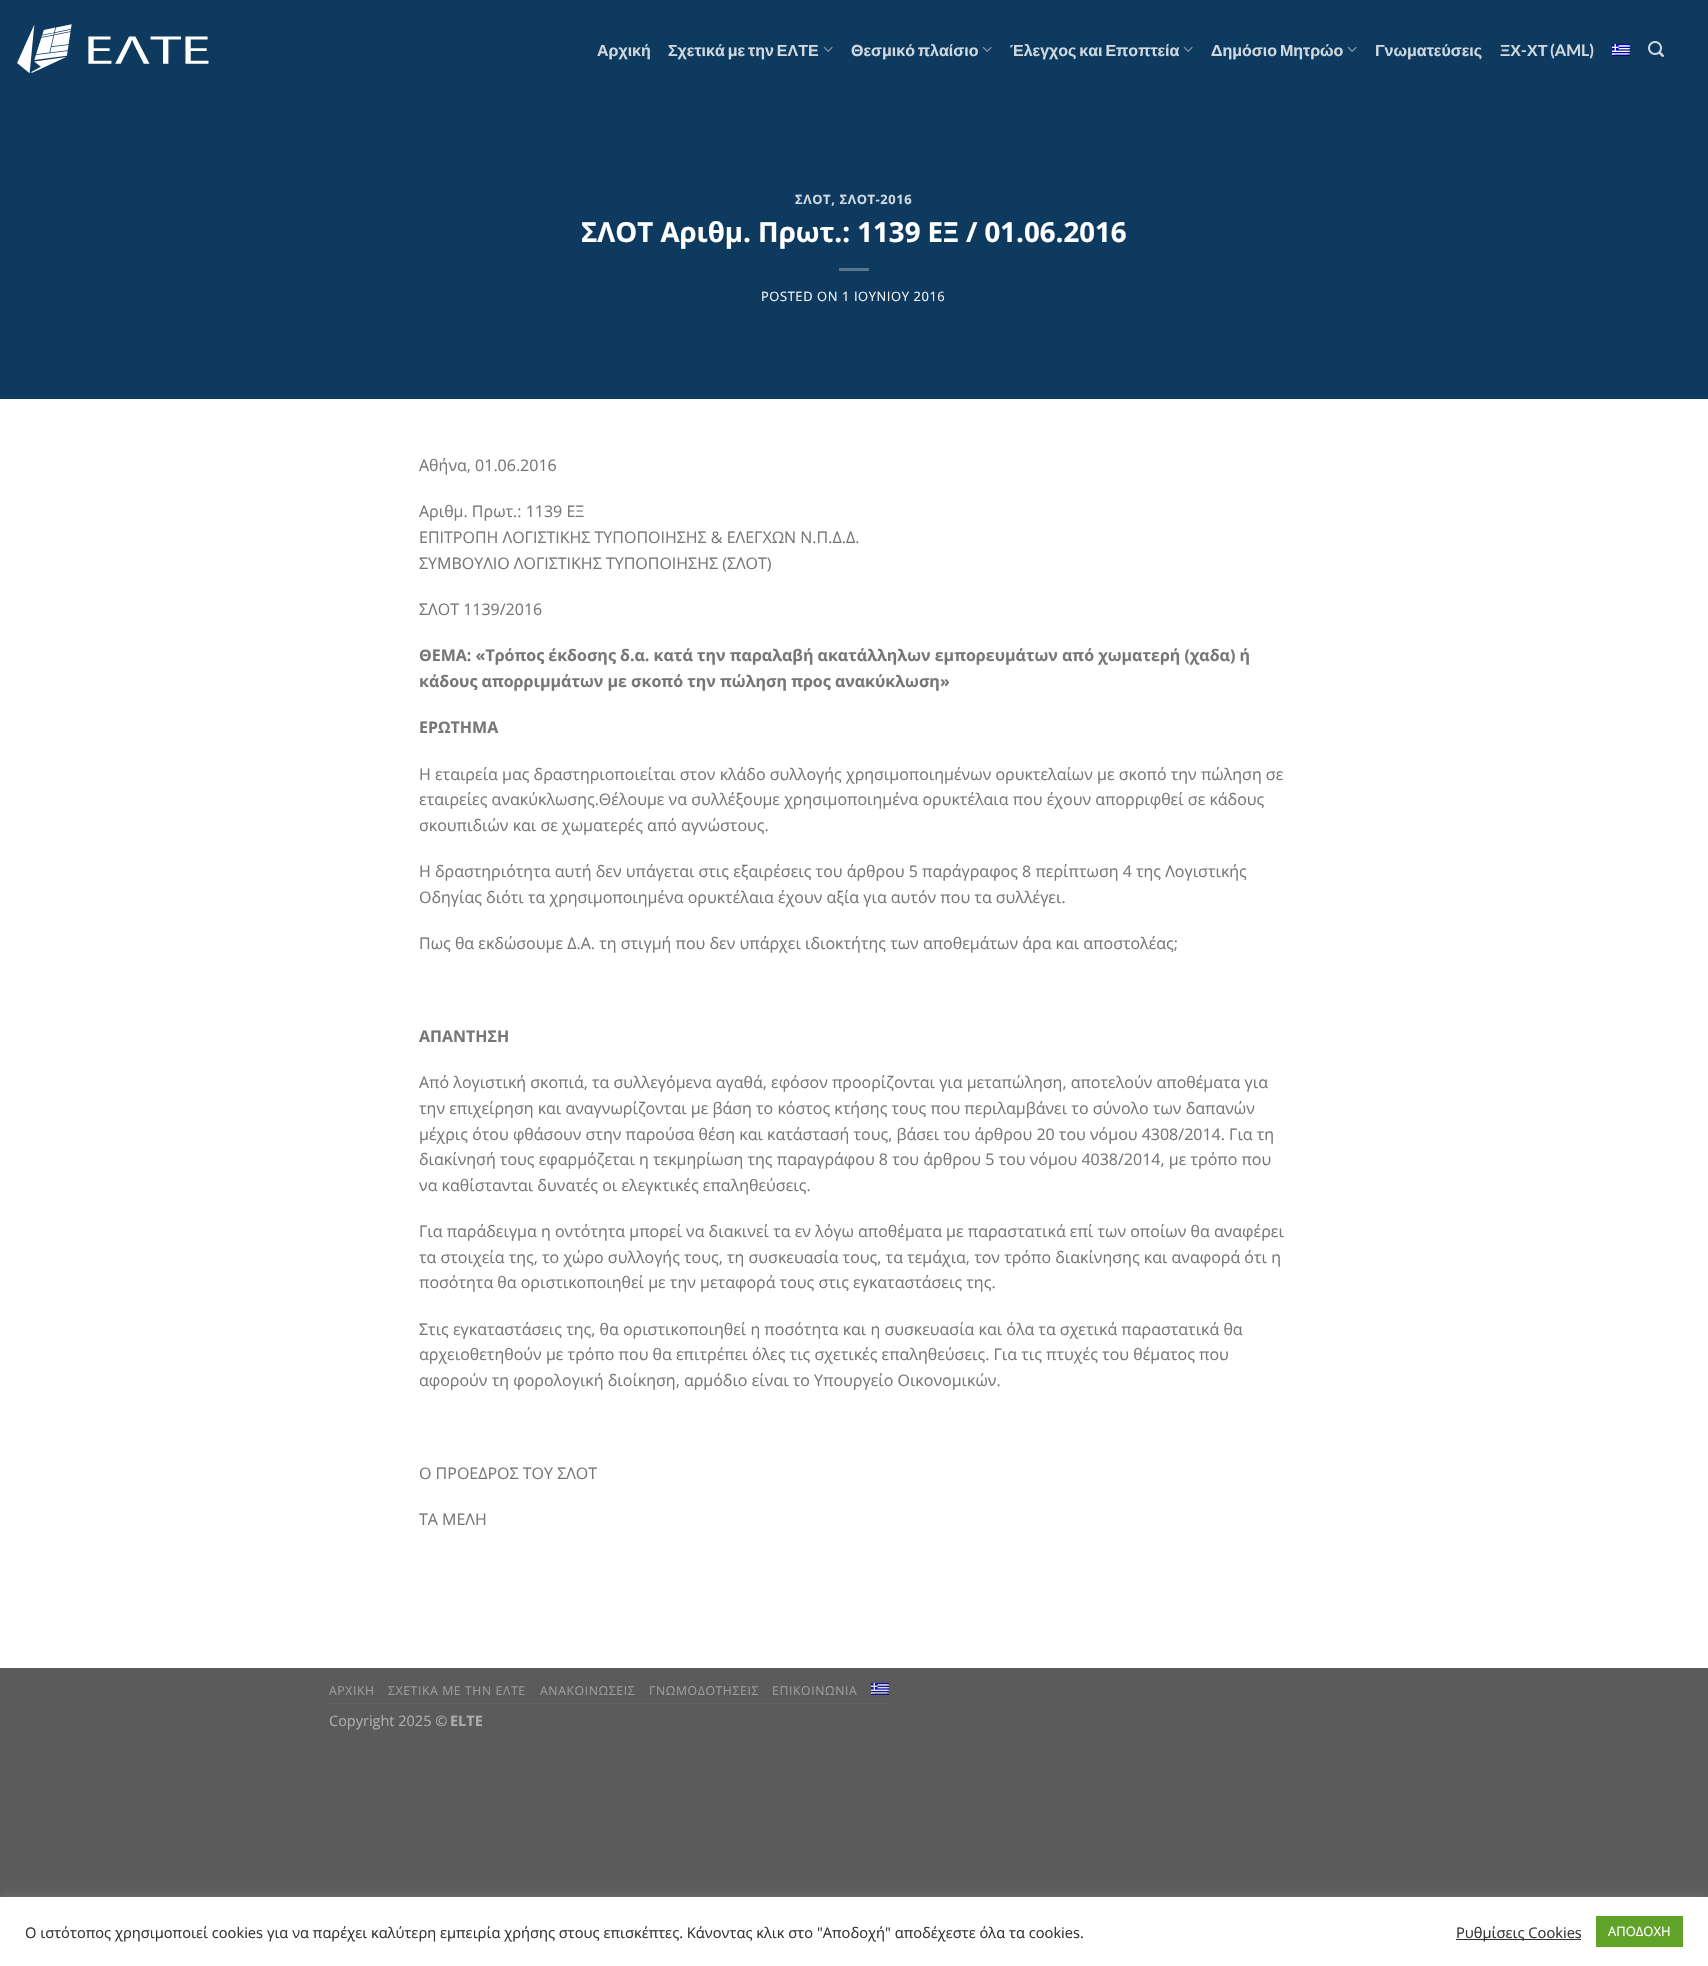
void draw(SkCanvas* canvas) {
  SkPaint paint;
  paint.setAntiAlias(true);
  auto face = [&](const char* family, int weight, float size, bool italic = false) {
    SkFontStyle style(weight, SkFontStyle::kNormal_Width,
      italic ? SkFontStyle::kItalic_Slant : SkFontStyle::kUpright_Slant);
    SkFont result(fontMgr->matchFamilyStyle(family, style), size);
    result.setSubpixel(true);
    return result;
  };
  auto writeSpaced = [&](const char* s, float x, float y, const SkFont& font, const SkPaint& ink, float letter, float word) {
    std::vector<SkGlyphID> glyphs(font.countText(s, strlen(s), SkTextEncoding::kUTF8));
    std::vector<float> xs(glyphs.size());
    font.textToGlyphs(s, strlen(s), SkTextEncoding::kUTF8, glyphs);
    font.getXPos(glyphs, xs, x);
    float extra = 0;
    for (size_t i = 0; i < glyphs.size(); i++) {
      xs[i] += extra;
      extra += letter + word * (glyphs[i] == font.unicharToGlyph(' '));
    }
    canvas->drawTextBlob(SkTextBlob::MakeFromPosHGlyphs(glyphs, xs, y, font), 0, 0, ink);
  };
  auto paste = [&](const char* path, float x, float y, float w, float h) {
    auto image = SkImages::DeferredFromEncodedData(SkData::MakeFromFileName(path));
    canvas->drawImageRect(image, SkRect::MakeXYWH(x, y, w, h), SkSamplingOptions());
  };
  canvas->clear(0xff5b5b5b);
  paint.setColor(0xffffffff);
  canvas->drawRect(SkRect::MakeXYWH(0, 399, 1708, 1269), paint);
  paint.setColor(0xff0f3a60);
  canvas->drawRect(SkRect::MakeXYWH(0, 0, 1708, 399), paint);
  paste("img/1.png", 17, 24, 192, 50);
  paste("img/2.png", 823, 46, 10, 6);
  paste("img/2.png", 982, 46, 10, 6);
  paste("img/2.png", 1183, 46, 10, 6);
  paste("img/2.png", 1347, 46, 10, 6);
  paste("img/3.png", 1612, 44, 18, 12);
  paste("img/4.png", 1648, 41, 16, 16);
  paint.setColor(0xff577590);
  canvas->drawRect(SkRect::MakeXYWH(839, 268, 30, 3), paint);
  paint.setColor(0xff656565);
  canvas->drawRect(SkRect::MakeXYWH(329, 1703, 560, 1), paint);
  paste("img/5.png", 871, 1683, 18, 12);
  paint.setColor(0x4dacabab);
  paint.setMaskFilter(SkMaskFilter::MakeBlur(kNormal_SkBlurStyle, 5));
  canvas->drawRect(SkRect::MakeXYWH(0, 1896, 1708, 69), paint);
  paint.setMaskFilter(nullptr);
  {
    const struct { float x, y, w, h; SkColor color; } items[] = {
      {0, 1897, 1708, 69, 0xffffffff},
      {1456, 1939, 125, 1, 0xff333333},
      {1596, 1916, 87, 31, 0xff61a229},
    };
    for (auto [x, y, w, h, color] : items) {
      paint.setColor(color);
      canvas->drawRect(SkRect::MakeXYWH(x, y, w, h), paint);
    }
  }
  auto f0 = face("Liberation Sans", 700, 16);
  paint.setColor(0xffcfd8df);
  canvas->drawString("Αρχική", 597, 56, f0, paint);
  {
    const struct { const char* s; float x, y; } items[] = {
      {"Σχετικά με την ΕΛΤΕ", 668, 56},
      {"Θεσμικό πλαίσιο", 851, 56},
      {"Έλεγχος και Εποπτεία", 1010, 56},
      {"Δημόσιο Μητρώο", 1211, 56},
    };
    for (auto [s, x, y] : items) {
      writeSpaced(s, x, y, f0, paint, 0, -1.5f);
    }
  }
  canvas->drawString("Γνωματεύσεις", 1375, 56, f0, paint);
  canvas->drawString("ΞΧ", 1500, 56, f0, paint);
  auto f1 = face("Lato", 700, 16);
  canvas->drawString("-", 1521, 56, f1, paint);
  canvas->drawString("ΧΤ", 1527, 56, f0, paint);
  canvas->drawString("(AML)", 1550, 56, f1, paint);
  auto f2 = face("Open Sans", 700, 12.9f);
  writeSpaced("ΣΛΟΤ, ΣΛΟΤ-2016", 795, 204, f2, paint, 0.6f, 0);
  auto f3 = face("Open Sans", 700, 27.6f);
  paint.setColor(0xffffffff);
  canvas->drawString("ΣΛΟΤ Αριθμ. Πρωτ.: 1139 ΕΞ / 01.06.2016", 581, 242, f3, paint);
  auto f4 = face("Open Sans", 400, 12.9f);
  paint.setColor(0xfff1f1f1);
  writeSpaced("POSTED ON 1 ΙΟΥΝΙΟΥ 2016", 761, 301, f4, paint, 0.6f, 0);
  auto f5 = face("Open Sans", 400, 16);
  paint.setColor(0xff777777);
  {
    const struct { const char* s; float x, y; } items[] = {
      {"Αθήνα, 01.06.2016", 419, 471},
      {"Αριθμ. Πρωτ.: 1139 ΕΞ", 419, 517},
      {"ΕΠΙΤΡΟΠΗ ΛΟΓΙΣΤΙΚΗΣ ΤΥΠΟΠΟΙΗΣΗΣ & ΕΛΕΓΧΩΝ Ν.Π.Δ.Δ.", 419, 543},
      {"ΣΥΜΒΟΥΛΙΟ ΛΟΓΙΣΤΙΚΗΣ ΤΥΠΟΠΟΙΗΣΗΣ (ΣΛΟΤ)", 419, 569},
      {"ΣΛΟΤ 1139/2016", 419, 615},
    };
    for (auto [s, x, y] : items) {
      canvas->drawString(s, x, y, f5, paint);
    }
  }
  auto f6 = face("Open Sans", 700, 16);
  {
    const struct { const char* s; float x, y; } items[] = {
      {"ΘΕΜΑ: «Τρόπος έκδοσης δ.α. κατά την παραλαβή ακατάλληλων εμπορευμάτων από χωματερή (χαδα) ή", 419, 661},
      {"κάδους απορριμμάτων με σκοπό την πώληση προς ανακύκλωση»", 419, 687},
      {"ΕΡΩΤΗΜΑ", 419, 733},
    };
    for (auto [s, x, y] : items) {
      canvas->drawString(s, x, y, f6, paint);
    }
  }
  {
    const struct { const char* s; float x, y; } items[] = {
      {"Η εταιρεία μας δραστηριοποιείται στον κλάδο συλλογής χρησιμοποιημένων ορυκτελαίων με σκοπό την πώληση σε", 419, 780},
      {"εταιρείες ανακύκλωσης.Θέλουμε να συλλέξουμε χρησιμοποιημένα ορυκτέλαια που έχουν απορριφθεί σε κάδους", 419, 805},
      {"σκουπιδιών και σε χωματερές από αγνώστους.", 419, 831},
      {"Η δραστηριότητα αυτή δεν υπάγεται στις εξαιρέσεις του άρθρου 5 παράγραφος 8 περίπτωση 4 της Λογιστικής", 419, 877},
      {"Οδηγίας διότι τα χρησιμοποιημένα ορυκτέλαια έχουν αξία για αυτόν που τα συλλέγει.", 419, 903},
      {"Πως θα εκδώσουμε Δ.Α. τη στιγμή που δεν υπάρχει ιδιοκτήτης των αποθεμάτων άρα και αποστολέας;", 419, 949},
    };
    for (auto [s, x, y] : items) {
      canvas->drawString(s, x, y, f5, paint);
    }
  }
  canvas->drawString("ΑΠΑΝΤΗΣΗ", 419, 1042, f6, paint);
  {
    const struct { const char* s; float x, y; } items[] = {
      {"Από λογιστική σκοπιά, τα συλλεγόμενα αγαθά, εφόσον προορίζονται για μεταπώληση, αποτελούν αποθέματα για", 419, 1088},
      {"την επιχείρηση και αναγνωρίζονται με βάση το κόστος κτήσης τους που περιλαμβάνει το σύνολο των δαπανών", 419, 1114},
      {"μέχρις ότου φθάσουν στην παρούσα θέση και κατάστασή τους, βάσει του άρθρου 20 του νόμου 4308/2014. Για τη", 419, 1140},
      {"διακίνησή τους εφαρμόζεται η τεκμηρίωση της παραγράφου 8 του άρθρου 5 του νόμου 4038/2014, με τρόπο που", 419, 1165},
      {"να καθίστανται δυνατές οι ελεγκτικές επαληθεύσεις.", 419, 1191},
      {"Για παράδειγμα η οντότητα μπορεί να διακινεί τα εν λόγω αποθέματα με παραστατικά επί των οποίων θα αναφέρει", 419, 1237},
      {"τα στοιχεία της, το χώρο συλλογής τους, τη συσκευασία τους, τα τεμάχια, τον τρόπο διακίνησης και αναφορά ότι η", 419, 1263},
      {"ποσότητα θα οριστικοποιηθεί με την μεταφορά τους στις εγκαταστάσεις της.", 419, 1288},
      {"Στις εγκαταστάσεις της, θα οριστικοποιηθεί η ποσότητα και η συσκευασία και όλα τα σχετικά παραστατικά θα", 419, 1335},
      {"αρχειοθετηθούν με τρόπο που θα επιτρέπει όλες τις σχετικές επαληθεύσεις. Για τις πτυχές του θέματος που", 419, 1360},
      {"αφορούν τη φορολογική διοίκηση, αρμόδιο είναι το Υπουργείο Οικονομικών.", 419, 1386},
      {"Ο ΠΡΟΕΔΡΟΣ ΤΟΥ ΣΛΟΤ", 419, 1479},
      {"ΤΑ ΜΕΛΗ", 419, 1525},
    };
    for (auto [s, x, y] : items) {
      canvas->drawString(s, x, y, f5, paint);
    }
  }
  auto f7 = face("Open Sans", 400, 12.25f);
  paint.setColor(0xff9d9d9d);
  {
    const struct { const char* s; float x, y; } items[] = {
      {"ΑΡΧΙΚΗ", 329, 1695},
      {"ΣΧΕΤΙΚΑ ΜΕ ΤΗΝ ΕΛΤΕ", 388, 1695},
      {"ΑΝΑΚΟΙΝΩΣΕΙΣ", 540, 1695},
      {"ΓΝΩΜΟΔΟΤΗΣΕΙΣ", 649, 1695},
      {"ΕΠΙΚΟΙΝΩΝΙΑ", 772, 1695},
    };
    for (auto [s, x, y] : items) {
      writeSpaced(s, x, y, f7, paint, 0.6f, 0);
    }
  }
  auto f8 = face("Open Sans", 400, 14.5f);
  paint.setColor(0xffadadad);
  canvas->drawString("Copyright 2025 ©", 329, 1726, f8, paint);
  auto f9 = face("Open Sans", 700, 14.5f);
  canvas->drawString("ELTE", 450, 1726, f9, paint);
  auto f10 = face("Open Sans", 400, 14.67f);
  paint.setColor(0xff333333);
  canvas->drawString("Ο ιστότοπος χρησιμοποιεί cookies για να παρέχει καλύτερη εμπειρία χρήσης στους επισκέπτες. Κάνοντας κλικ στο \"Αποδοχή\" αποδέχεστε όλα τα cookies.", 25, 1938, f10, paint);
  canvas->drawString("Ρυθμίσεις Cookies", 1456, 1938, f10, paint);
  auto f11 = face("Open Sans", 400, 13);
  paint.setColor(0xffffffff);
  canvas->drawString("ΑΠΟΔΟΧΗ", 1608, 1936, f11, paint);
}
